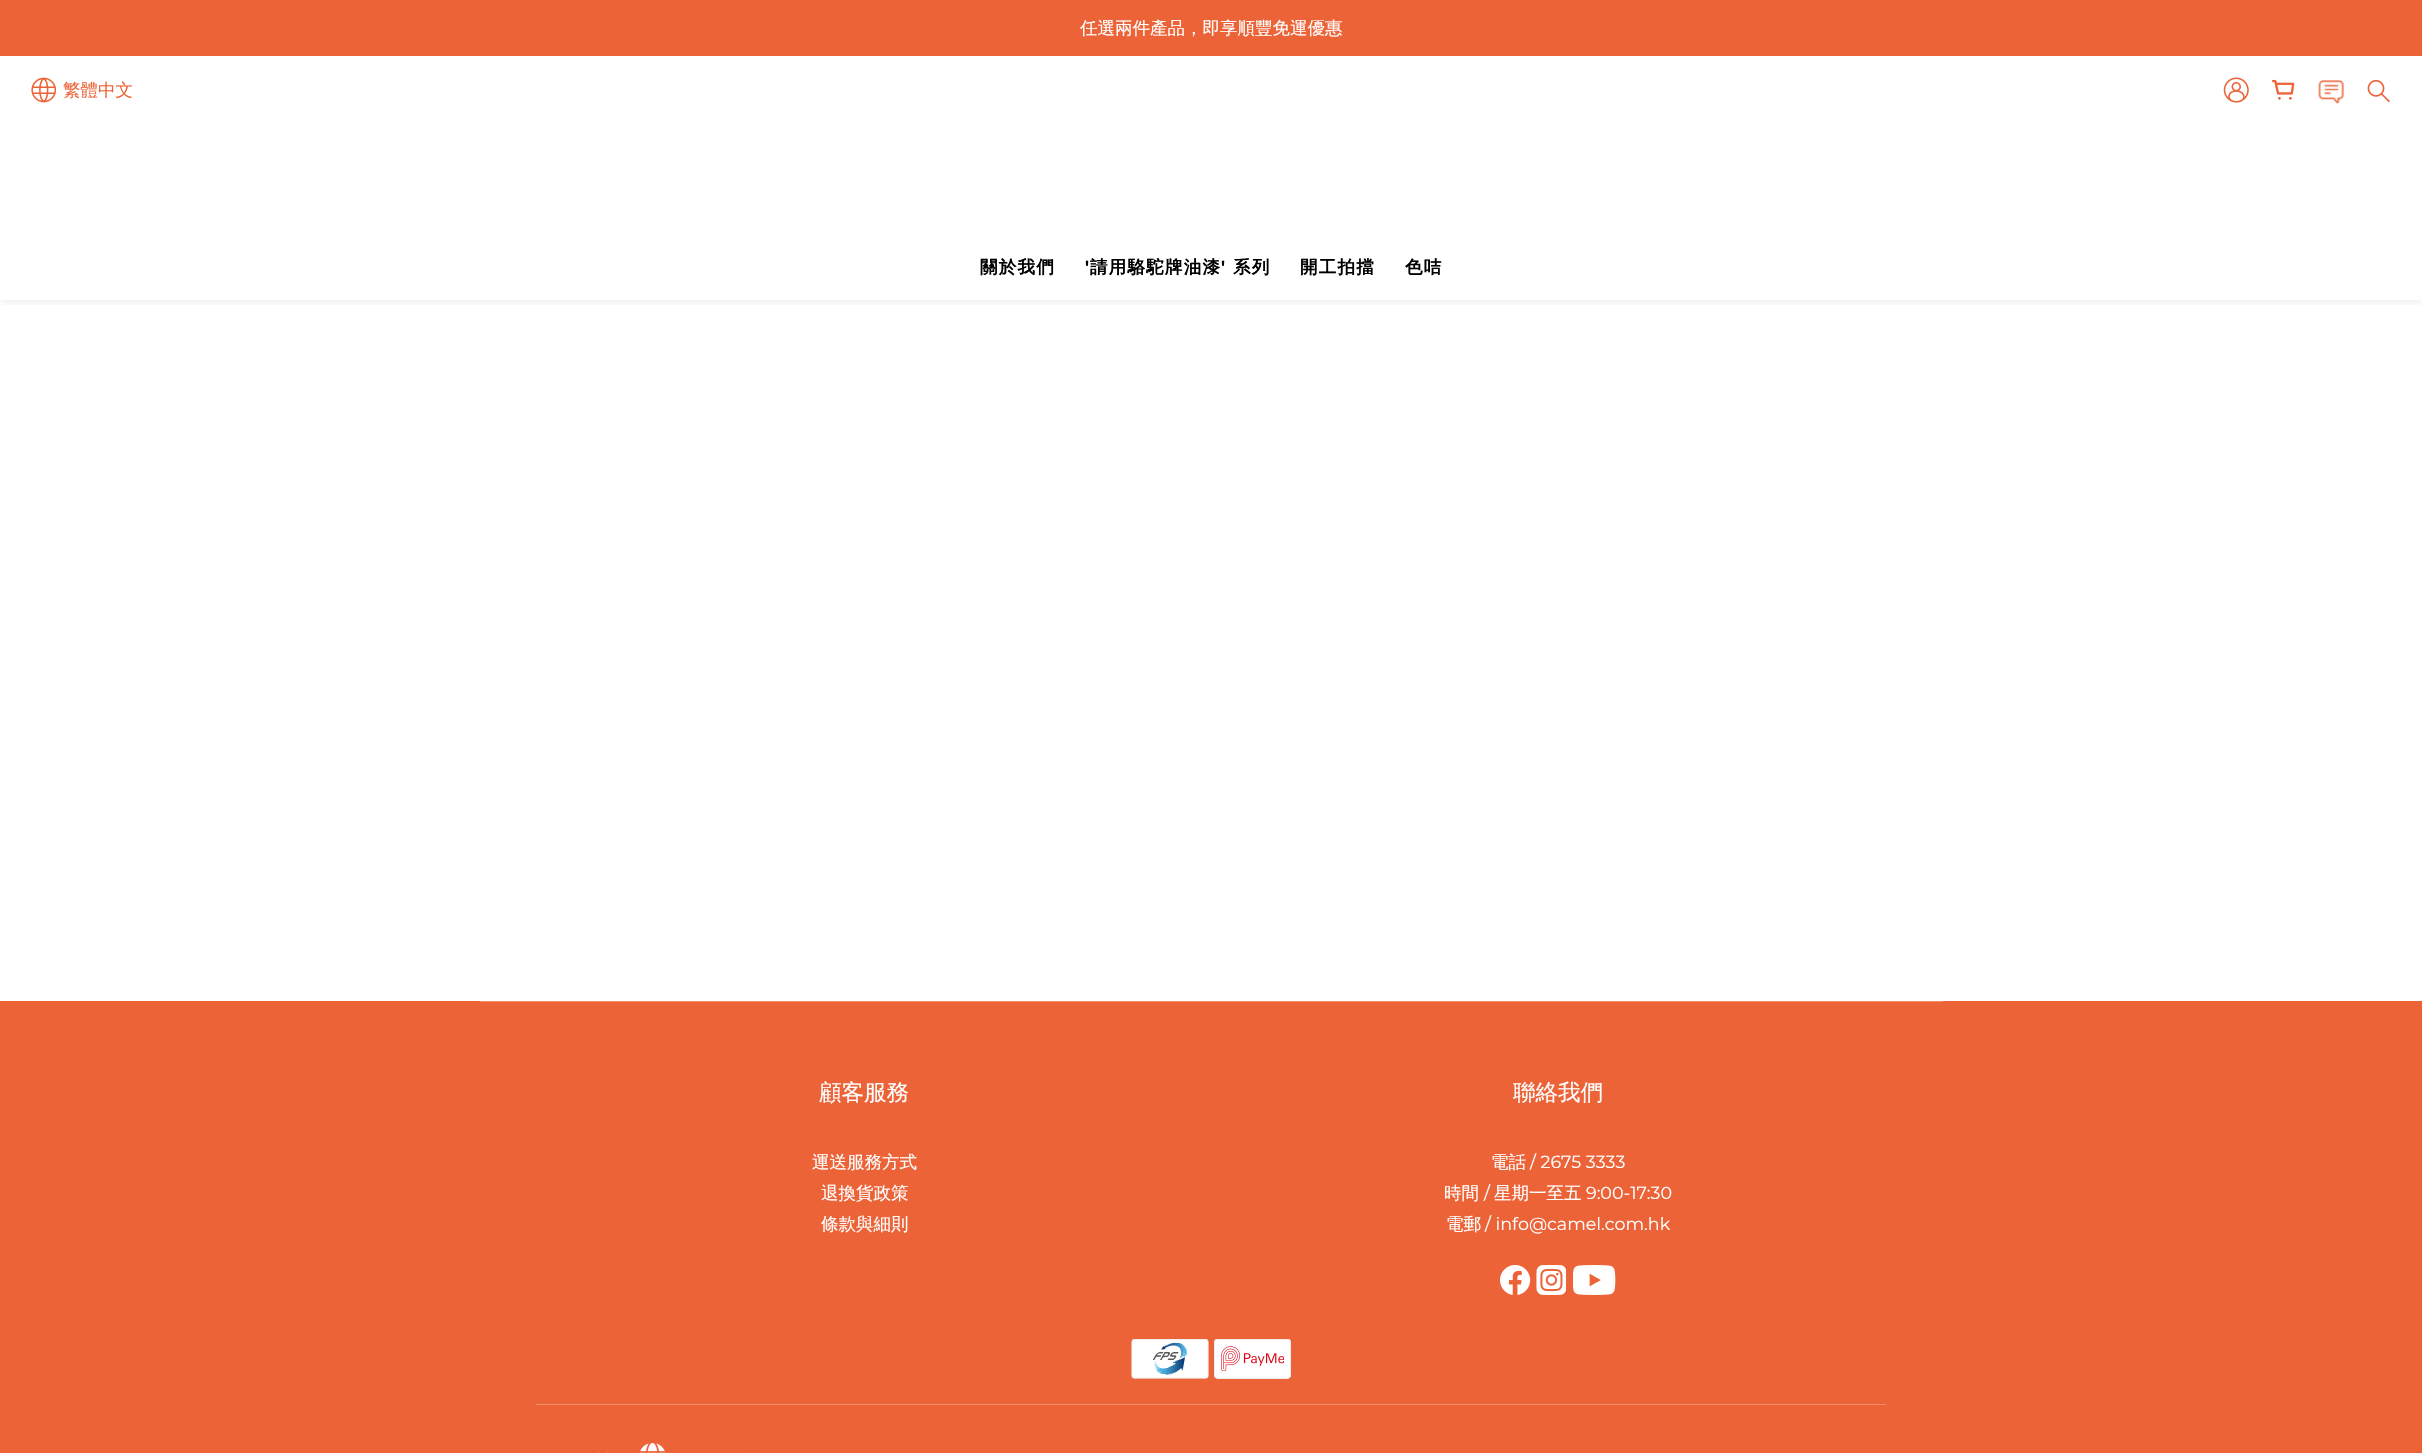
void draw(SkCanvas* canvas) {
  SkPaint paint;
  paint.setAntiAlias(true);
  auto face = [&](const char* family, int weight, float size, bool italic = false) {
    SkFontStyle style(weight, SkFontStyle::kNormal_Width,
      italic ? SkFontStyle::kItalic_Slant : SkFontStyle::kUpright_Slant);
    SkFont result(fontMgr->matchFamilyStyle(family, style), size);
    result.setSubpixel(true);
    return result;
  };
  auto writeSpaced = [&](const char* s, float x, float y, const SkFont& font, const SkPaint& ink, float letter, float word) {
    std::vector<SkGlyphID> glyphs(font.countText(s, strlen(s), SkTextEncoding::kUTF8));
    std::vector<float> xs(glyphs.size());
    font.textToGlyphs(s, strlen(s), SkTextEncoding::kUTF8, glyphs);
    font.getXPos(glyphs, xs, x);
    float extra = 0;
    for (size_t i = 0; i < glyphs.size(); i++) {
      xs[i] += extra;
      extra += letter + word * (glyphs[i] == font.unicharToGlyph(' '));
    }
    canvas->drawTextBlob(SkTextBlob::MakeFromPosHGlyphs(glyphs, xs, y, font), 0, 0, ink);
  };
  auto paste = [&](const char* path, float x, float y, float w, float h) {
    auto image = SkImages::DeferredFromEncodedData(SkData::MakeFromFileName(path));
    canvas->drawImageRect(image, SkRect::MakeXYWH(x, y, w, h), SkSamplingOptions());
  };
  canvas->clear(0xffffffff);
  paint.setColor(0xffec6338);
  canvas->drawRect(SkRect::MakeXYWH(0, 0, 2422, 56), paint);
  canvas->save();
  canvas->clipRect(SkRect::MakeXYWH(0, 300, 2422, 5));
  paint.setColor(0x0f000000);
  paint.setMaskFilter(SkMaskFilter::MakeBlur(kNormal_SkBlurStyle, 4));
  canvas->drawRect(SkRect::MakeXYWH(0, 59, 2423, 244), paint);
  paint.setMaskFilter(nullptr);
  canvas->restore();
  paste("img/1.png", 31, 77, 26, 26);
  paste("img/2.png", 2223, 77, 26, 26);
  paste("img/3.png", 2272, 79, 23, 21);
  paste("img/4.png", 2318, 80, 27, 24);
  paste("img/5.png", 2367, 79, 23, 24);
  paint.setColor(0xffec6338);
  canvas->drawRect(SkRect::MakeXYWH(0, 1001, 2422, 452), paint);
  paint.setColor(0xfff18c6d);
  canvas->drawRect(SkRect::MakeXYWH(480, 1001, 1463, 1), paint);
  paste("img/6.png", 1500, 1265, 31, 30);
  paste("img/7.png", 1536, 1265, 30, 30);
  paste("img/8.png", 1573, 1265, 43, 30);
  paste("img/9.png", 1131, 1339, 78, 40);
  paste("img/10.png", 1214, 1339, 77, 40);
  canvas->drawRect(SkRect::MakeXYWH(536, 1404, 1350, 1), paint);
  paste("img/11.png", 598, 1452, 10, 1);
  paste("img/12.png", 639, 1443, 27, 10);
  paste("img/13.png", 746, 1452, 9, 1);
  auto f0 = face("WenQuanYi Zen Hei", 500, 17.5f);
  paint.setColor(0xffffffff);
  canvas->drawString("任選兩件產品，即享順豐免運優惠", 1080, 34, f0, paint);
  paint.setColor(0xffec6338);
  canvas->drawString("繁體中文", 63, 96, f0, paint);
  auto f1 = face("WenQuanYi Zen Hei", 700, 17.5f);
  paint.setColor(0xff000000);
  writeSpaced("關於我們", 980, 273, f1, paint, 1.25f, 0);
  auto f2 = face("Montserrat", 700, 17.5f);
  writeSpaced("'", 1085, 273, f2, paint, 1.25f, 0);
  writeSpaced("請用駱駝牌油漆", 1090, 273, f1, paint, 1.25f, 0);
  writeSpaced("'", 1221, 273, f2, paint, 1.25f, 0);
  {
    const struct { const char* s; float x, y; } items[] = {
      {"系列", 1233, 273},
      {"開工拍擋", 1300, 273},
      {"色咭", 1405, 273},
    };
    for (auto [s, x, y] : items) {
      writeSpaced(s, x, y, f1, paint, 1.25f, 0);
    }
  }
  auto f3 = face("WenQuanYi Zen Hei", 500, 22.5f);
  paint.setColor(0xffffffff);
  canvas->drawString("顧客服務", 819, 1100, f3, paint);
  {
    const struct { const char* s; float x, y; } items[] = {
      {"運送服務方式", 812, 1168},
      {"退換貨政策", 821, 1199},
      {"條款與細則", 821, 1230},
    };
    for (auto [s, x, y] : items) {
      canvas->drawString(s, x, y, f0, paint);
    }
  }
  canvas->drawString("聯絡我們", 1513, 1100, f3, paint);
  canvas->drawString("電話", 1491, 1168, f0, paint);
  auto f4 = face("Montserrat", 400, 17.5f);
  canvas->drawString("/ 2675 3333", 1530, 1168, f4, paint);
  canvas->drawString("時間", 1444, 1199, f0, paint);
  canvas->drawString("/", 1484, 1199, f4, paint);
  canvas->drawString("星期一至五", 1494, 1199, f0, paint);
  canvas->drawString("9:00-17:30", 1586, 1199, f4, paint);
  canvas->drawString("電郵", 1446, 1230, f0, paint);
  canvas->drawString("/ info@camel.com.hk", 1485, 1230, f4, paint);
}
